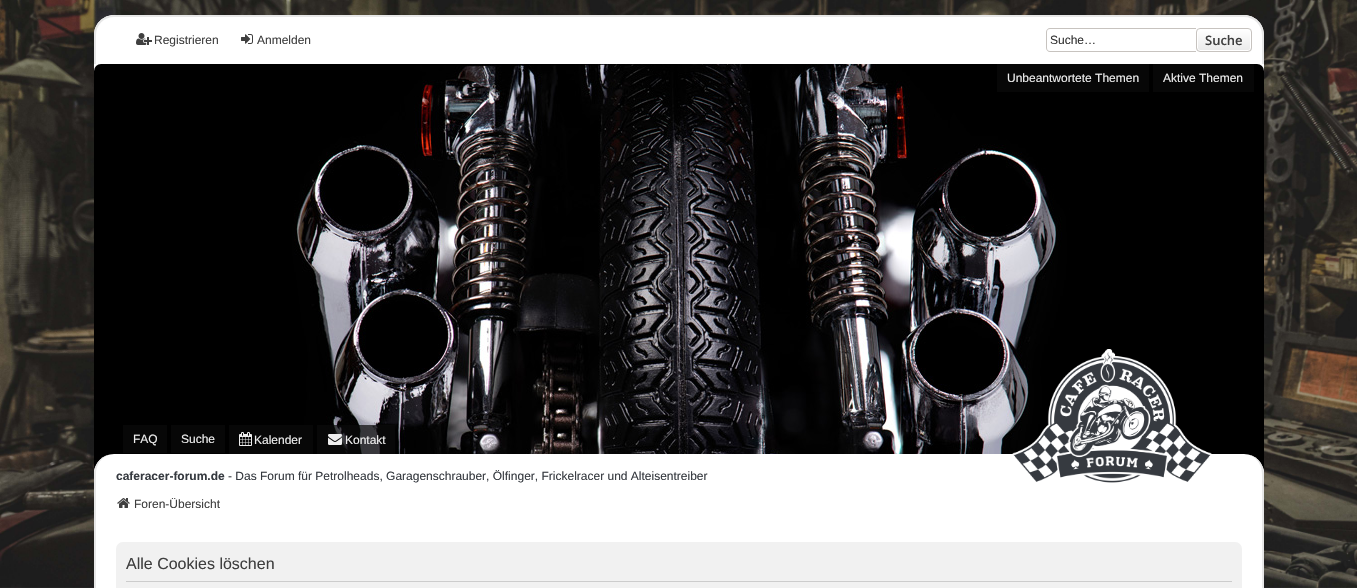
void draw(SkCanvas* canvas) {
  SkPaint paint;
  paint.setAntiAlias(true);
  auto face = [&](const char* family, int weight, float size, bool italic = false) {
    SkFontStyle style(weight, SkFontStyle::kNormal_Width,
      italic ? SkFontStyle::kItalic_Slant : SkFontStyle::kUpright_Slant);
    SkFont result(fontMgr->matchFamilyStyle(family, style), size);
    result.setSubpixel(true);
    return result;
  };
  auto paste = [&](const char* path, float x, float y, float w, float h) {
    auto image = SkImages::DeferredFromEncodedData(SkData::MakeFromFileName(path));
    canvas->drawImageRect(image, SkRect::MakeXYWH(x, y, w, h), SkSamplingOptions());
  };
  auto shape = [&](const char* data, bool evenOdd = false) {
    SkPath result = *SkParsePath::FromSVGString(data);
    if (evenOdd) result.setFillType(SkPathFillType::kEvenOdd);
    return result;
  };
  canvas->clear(0xffffffff);
  paste("img/1.png", 0, 0, 1357, 588);
  paint.setColor(0xffffffff);
  canvas->drawPath(shape("M114 15H1244C1255 15 1264 24 1264 35V64H94V35C94 24 103 15 114 15Z"), paint);
  paint.setColor(0xffe7e7e7);
  canvas->drawPath(shape("M114 15H1244C1255 15 1264 24 1264 35V64H94V35C94 24 103 15 114 15ZM114 17H1244C1254 17 1262 25 1262 35V64H96V35C96 25 104 17 114 17Z", true), paint);
  paste("img/2.png", 136, 33, 16, 12);
  paste("img/3.png", 241, 34, 12, 10);
  paint.setColor(0xffc7c3bf);
  canvas->drawPath(shape("M1050 28H1196V52H1050C1048 52 1046 50 1046 48V32C1046 30 1048 28 1050 28ZM1050 29H1196V51H1050C1048 51 1047 50 1047 48V32C1047 30 1048 29 1050 29Z", true), paint);
  canvas->save();
  canvas->clipPath(shape("M1200 28H1248C1250 28 1252 30 1252 32V48C1252 50 1250 52 1248 52H1200C1198 52 1196 50 1196 48V32C1196 30 1198 28 1200 28Z"), true);
  {
    const SkColor colors[] = {0xffffffff, 0xffe9e9e9};
    const float stops[] = {0, 1};
    const SkPoint ends[] = {{1224, 29}, {1224, 51}};
    paint.setShader(SkGradientShader::MakeLinear(ends, colors, stops, 2, SkTileMode::kClamp));
    paint.setAlpha(255);
  }
  canvas->drawRect(SkRect::MakeXYWH(1196, 29, 56, 22), paint);
  canvas->restore();
  paint.setStroke(true);
  paint.setStrokeWidth(1);
  paint.setShader(nullptr);
  paint.setColor(0xffffffff);
  canvas->drawRoundRect(SkRect::MakeXYWH(1197.5f, 29.5f, 53, 21), 2.5f, 2.5f, paint);
  paint.setColor(0xffc7c3bf);
  canvas->drawRoundRect(SkRect::MakeXYWH(1196.5f, 28.5f, 55, 23), 3.5f, 3.5f, paint);
  paint.setStroke(false);
  paint.setColor(0xffffffff);
  canvas->drawRect(SkRect::MakeXYWH(94, 64, 1170, 410), paint);
  paste("img/4.png", 94, 64, 1170, 407);
  {
    const struct { float x, y, w, h; SkColor color; } items[] = {
      {997, 64, 152, 28, 0xff070707},
      {1153, 64, 101, 28, 0xff070707},
      {123, 425, 44, 28, 0xff070707},
      {171, 425, 54, 28, 0xff070707},
      {229, 425, 84, 29, 0xff070707},
    };
    for (auto [x, y, w, h, color] : items) {
      paint.setColor(color);
      canvas->drawRect(SkRect::MakeXYWH(x, y, w, h), paint);
    }
  }
  paste("img/5.png", 239, 432, 13, 14);
  paint.setColor(0xb30a0a0a);
  canvas->drawRect(SkRect::MakeXYWH(317, 425, 78, 29), paint);
  paste("img/6.png", 328, 434, 14, 11);
  paint.setColor(0xffffffff);
  canvas->drawRoundRect(SkRect::MakeXYWH(94, 454, 1170, 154), 20, 20, paint);
  paint.setColor(0xffe7e7e7);
  canvas->drawPath(shape("M114 454H1244C1255 454 1264 463 1264 474V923C1264 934 1255 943 1244 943H114C103 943 94 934 94 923V474C94 463 103 454 114 454ZM114 454H1244C1254 454 1262 463 1262 474V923C1262 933 1254 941 1244 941H114C104 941 96 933 96 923V474C96 463 104 454 114 454Z", true), paint);
  paste("img/7.png", 1012, 349, 200, 134);
  paste("img/8.png", 117, 498, 13, 10);
  paint.setColor(0xfff1f1f1);
  canvas->drawRoundRect(SkRect::MakeXYWH(116, 542, 1126, 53), 7, 7, paint);
  paint.setColor(0xffcccccc);
  canvas->drawRect(SkRect::MakeXYWH(126, 581, 1106, 1), paint);
  auto f0 = face("Liberation Sans", 400, 12);
  paint.setColor(0xff3f3f3f);
  canvas->drawString("Registrieren", 154, 44, f0, paint);
  canvas->drawString("Anmelden", 257, 44, f0, paint);
  paint.setColor(0xff333333);
  canvas->drawString("Suche…", 1050, 44, f0, paint);
  auto f1 = face("Open Sans", 600, 13);
  paint.setColor(0xff3f3f3f);
  canvas->drawString("Suche", 1205, 45, f1, paint);
  paint.setColor(0xffeeeeee);
  {
    const struct { const char* s; float x, y; } items[] = {
      {"Unbeantwortete Themen", 1007, 82},
      {"Aktive Themen", 1163, 82},
      {"FAQ", 133, 443},
      {"Suche", 181, 443},
      {"Kalender", 254, 444},
      {"Kontakt", 345, 444},
    };
    for (auto [s, x, y] : items) {
      canvas->drawString(s, x, y, f0, paint);
    }
  }
  auto f2 = face("Liberation Sans", 700, 12);
  paint.setColor(0xff363a40);
  canvas->drawString("caferacer-forum.de", 116, 480, f2, paint);
  canvas->drawString("- Das Forum für Petrolheads, Garagenschrauber, Ölfinger, Frickelracer und Alteisentreiber", 228, 480, f0, paint);
  paint.setColor(0xff3f3f3f);
  canvas->drawString("Foren-Übersicht", 134, 508, f0, paint);
  auto f3 = face("Liberation Sans", 400, 16);
  canvas->drawString("Alle Cookies löschen", 126, 569, f3, paint);
}
